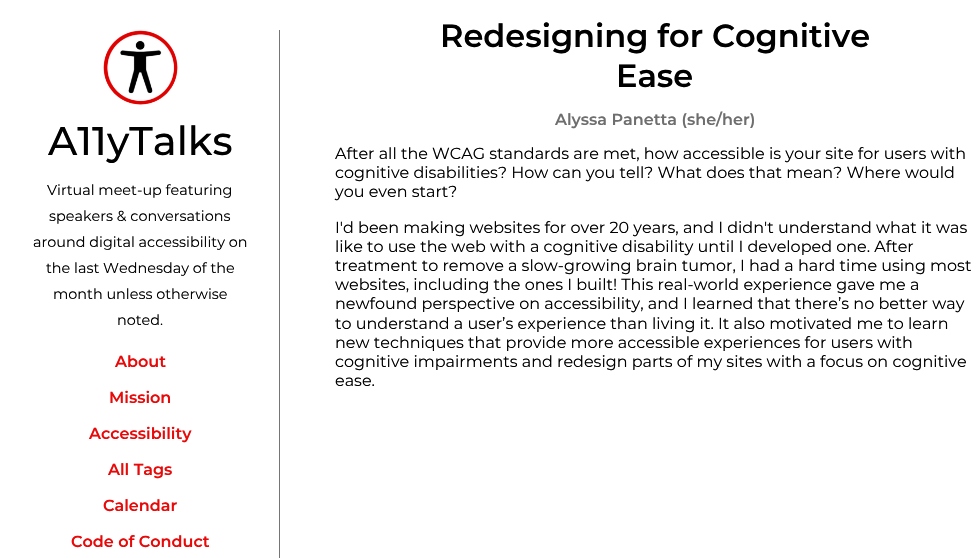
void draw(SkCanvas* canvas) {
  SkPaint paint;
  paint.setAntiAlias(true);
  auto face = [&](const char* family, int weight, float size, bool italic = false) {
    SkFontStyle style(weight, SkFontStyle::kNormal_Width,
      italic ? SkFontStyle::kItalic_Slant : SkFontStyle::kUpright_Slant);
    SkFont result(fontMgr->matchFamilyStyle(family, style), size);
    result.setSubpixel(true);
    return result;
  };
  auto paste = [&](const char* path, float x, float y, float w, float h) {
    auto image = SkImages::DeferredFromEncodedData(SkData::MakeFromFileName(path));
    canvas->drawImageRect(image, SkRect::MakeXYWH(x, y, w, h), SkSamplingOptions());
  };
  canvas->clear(0xffffffff);
  paste("img/1.png", 103, 30, 75, 75);
  paint.setColor(0xff757575);
  canvas->drawRect(SkRect::MakeXYWH(279, 30, 1, 528), paint);
  auto f0 = face("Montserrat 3", 100, 40);
  paint.setColor(0xff000000);
  canvas->drawString("A11yTalks", 48, 155, f0, paint);
  auto f1 = face("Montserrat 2", 100, 14.4f);
  {
    const struct { const char* s; float x, y; } items[] = {
      {"Virtual meet-up featuring", 47, 195},
      {"speakers & conversations", 49, 221},
      {"around digital accessibility on", 33, 247},
      {"the last Wednesday of the", 46, 273},
      {"month unless otherwise", 53, 299},
      {"noted.", 117, 325},
    };
    for (auto [s, x, y] : items) {
      canvas->drawString(s, x, y, f1, paint);
    }
  }
  auto f2 = face("Montserrat", 100, 16);
  paint.setColor(0xffe90909);
  {
    const struct { const char* s; float x, y; } items[] = {
      {"About", 115, 367},
      {"Mission", 109, 403},
      {"Accessibility", 89, 439},
      {"All Tags", 108, 475},
      {"Calendar", 103, 511},
      {"Code of Conduct", 71, 547},
    };
    for (auto [s, x, y] : items) {
      canvas->drawString(s, x, y, f2, paint);
    }
  }
  auto f3 = face("Montserrat", 100, 32);
  paint.setColor(0xff000000);
  canvas->drawString("Redesigning for Cognitive", 440, 47, f3, paint);
  canvas->drawString("Ease", 616, 87, f3, paint);
  paint.setColor(0xff6e6e6e);
  canvas->drawString("Alyssa Panetta (she/her)", 555, 125, f2, paint);
  auto f4 = face("Montserrat 2", 100, 16);
  paint.setColor(0xff000000);
  {
    const struct { const char* s; float x, y; } items[] = {
      {"After all the WCAG standards are met, how accessible is your site for users with", 335, 159},
      {"cognitive disabilities? How can you tell? What does that mean? Where would", 335, 178},
      {"you even start?", 335, 197},
      {"I'd been making websites for over 20 years, and I didn't understand what it was", 335, 233},
      {"like to use the web with a cognitive disability until I developed one. After", 335, 252},
      {"treatment to remove a slow-growing brain tumor, I had a hard time using most", 335, 271},
      {"websites, including the ones I built! This real-world experience gave me a", 335, 290},
      {"newfound perspective on accessibility, and I learned that there’s no better way", 335, 309},
      {"to understand a user’s experience than living it. It also motivated me to learn", 335, 329},
      {"new techniques that provide more accessible experiences for users with", 335, 348},
      {"cognitive impairments and redesign parts of my sites with a focus on cognitive", 335, 367},
      {"ease.", 335, 386},
    };
    for (auto [s, x, y] : items) {
      canvas->drawString(s, x, y, f4, paint);
    }
  }
}
